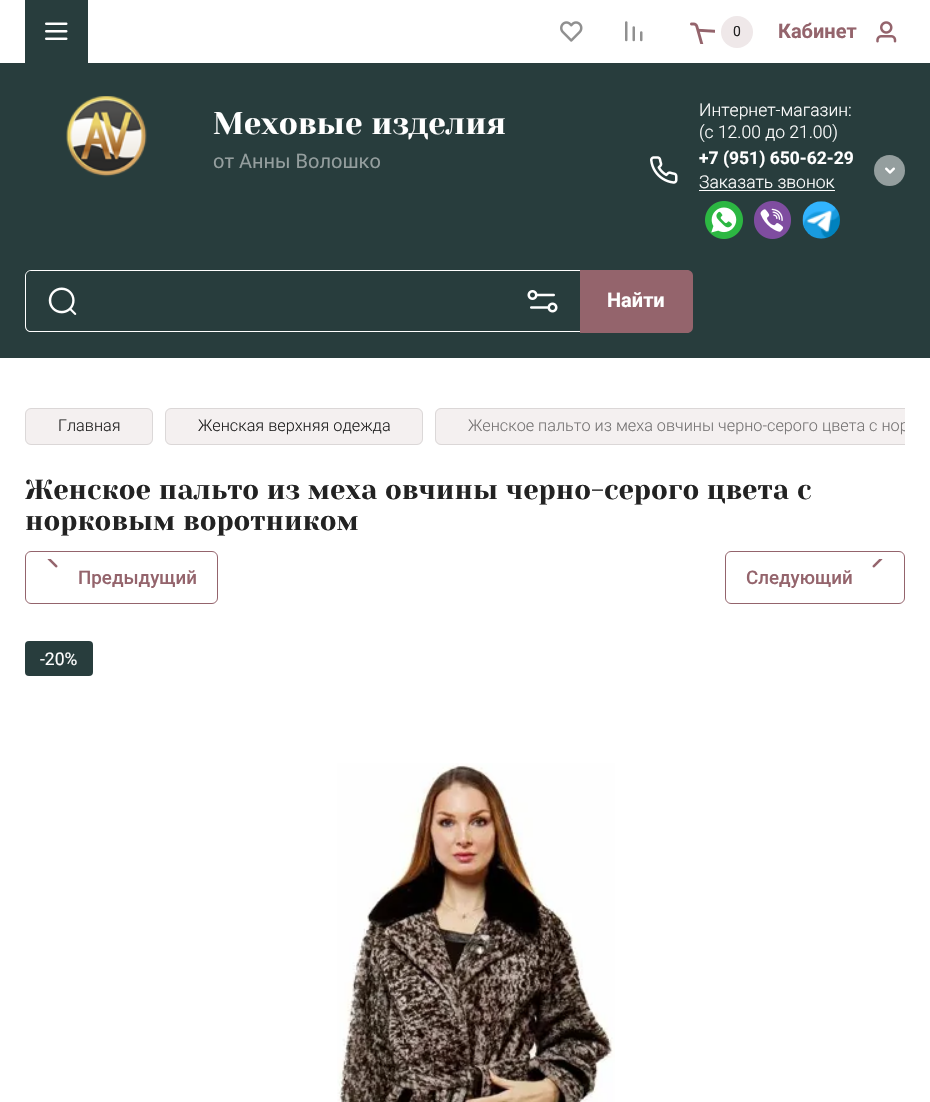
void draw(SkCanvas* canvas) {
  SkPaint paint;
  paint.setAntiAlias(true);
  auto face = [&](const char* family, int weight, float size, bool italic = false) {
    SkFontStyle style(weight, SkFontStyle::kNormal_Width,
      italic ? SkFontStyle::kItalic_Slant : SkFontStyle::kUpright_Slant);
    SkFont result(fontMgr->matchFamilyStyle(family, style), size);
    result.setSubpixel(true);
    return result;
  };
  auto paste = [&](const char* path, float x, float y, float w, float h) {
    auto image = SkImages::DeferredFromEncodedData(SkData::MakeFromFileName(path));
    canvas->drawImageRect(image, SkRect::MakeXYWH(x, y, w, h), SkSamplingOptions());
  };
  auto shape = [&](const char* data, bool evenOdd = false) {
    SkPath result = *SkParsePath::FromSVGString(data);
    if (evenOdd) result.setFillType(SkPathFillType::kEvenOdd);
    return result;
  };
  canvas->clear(0xffffffff);
  paint.setColor(0xff283d3d);
  canvas->drawRect(SkRect::MakeXYWH(25, 0, 63, 63), paint);
  paste("img/1.png", 45, 22, 23, 18);
  paste("img/2.png", 560, 21, 23, 21);
  paste("img/3.png", 625, 21, 18, 21);
  paste("img/4.png", 690, 22, 25, 22);
  paint.setColor(0xffefe8e9);
  canvas->drawCircle(737, 32, 16, paint);
  paste("img/5.png", 876, 21, 21, 22);
  paint.setColor(0xff283d3d);
  canvas->drawRect(SkRect::MakeXYWH(0, 63, 930, 295), paint);
  paste("img/6.png", 66, 96, 81, 81);
  paste("img/7.png", 650, 156, 28, 28);
  paint.setColor(0xffffffff);
  canvas->drawRect(SkRect::MakeXYWH(699, 190, 136, 1), paint);
  paste("img/8.png", 705, 201, 38, 38);
  paste("img/9.png", 754, 201, 37, 38);
  paste("img/10.png", 802, 201, 38, 38);
  paint.setColor(0xff949e9e);
  canvas->drawCircle(889.5f, 170.5f, 15.5f, paint);
  paste("img/11.png", 885, 167, 10, 7);
  paint.setColor(0xffffffff);
  canvas->drawPath(shape("M31 270H580V332H31C28 332 25 330 25 326V276C25 273 28 270 31 270ZM31 271H580V331H31C28 331 26 329 26 326V276C26 273 28 271 31 271Z", true), paint);
  paste("img/12.png", 527, 290, 31, 23);
  paste("img/13.png", 48, 287, 29, 28);
  paint.setColor(0xff94646c);
  canvas->drawPath(shape("M580 270H687C690.5 270 693 272.5 693 276V327C693 330.5 690.5 333 687 333H580Z"), paint);
  paint.setColor(0xfff4f0f0);
  canvas->drawRoundRect(SkRect::MakeXYWH(25, 408, 128, 37), 6, 6, paint);
  paint.setStroke(true);
  paint.setStrokeWidth(1);
  paint.setColor(0x1a000000);
  canvas->drawRoundRect(SkRect::MakeXYWH(25.5f, 408.5f, 127, 36), 5.5f, 5.5f, paint);
  paint.setStroke(false);
  paint.setColor(0xfff4f0f0);
  canvas->drawRoundRect(SkRect::MakeXYWH(165, 408, 258, 37), 6, 6, paint);
  paint.setStroke(true);
  paint.setColor(0x1a000000);
  canvas->drawRoundRect(SkRect::MakeXYWH(165.5f, 408.5f, 257, 36), 5.5f, 5.5f, paint);
  paint.setStroke(false);
  paint.setColor(0xfff4f0f0);
  canvas->drawPath(shape("M441 408H905V445H441C437.5 445 435 442.5 435 439V414C435 410.5 437.5 408 441 408Z"), paint);
  canvas->save();
  canvas->clipRect(SkRect::MakeXYWH(25, 408, 880, 37));
  paint.setStroke(true);
  paint.setColor(0x1a000000);
  canvas->drawRoundRect(SkRect::MakeXYWH(435.5f, 408.5f, 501, 36), 5.5f, 5.5f, paint);
  canvas->restore();
  paint.setColor(0xff94646c);
  canvas->drawRoundRect(SkRect::MakeXYWH(25.5f, 551.5f, 192, 52), 5.5f, 5.5f, paint);
  paste("img/14.png", 47, 559, 11, 9);
  canvas->drawRoundRect(SkRect::MakeXYWH(725.5f, 551.5f, 179, 52), 5.5f, 5.5f, paint);
  paste("img/15.png", 872, 559, 11, 9);
  paint.setStroke(false);
  paint.setColor(0xff283d3d);
  canvas->drawRoundRect(SkRect::MakeXYWH(25, 641, 68, 35), 4, 4, paint);
  paste("img/16.png", 337, 763, 278, 339);
  auto f0 = face("Roboto", 400, 14);
  paint.setColor(0xff222222);
  canvas->drawString("0", 733, 36, f0, paint);
  auto f1 = face("Roboto", 700, 20);
  paint.setColor(0xff94646c);
  canvas->drawString("Кабинет", 778, 38, f1, paint);
  auto f2 = face("Yeseva One", 400, 31.25f);
  paint.setColor(0xffffffff);
  canvas->drawString("Меховые изделия", 213, 134, f2, paint);
  auto f3 = face("Roboto", 400, 20);
  paint.setColor(0xff949e9e);
  canvas->drawString("от Анны Волошко", 213, 168, f3, paint);
  auto f4 = face("Roboto", 300, 17.5f);
  paint.setColor(0xffffffff);
  canvas->drawString("Интернет-магазин:", 699, 116, f4, paint);
  canvas->drawString("(с 12.00 до 21.00)", 699, 138, f4, paint);
  auto f5 = face("Roboto", 700, 17.5f);
  canvas->drawString("+7 (951) 650-62-29", 699, 164, f5, paint);
  canvas->drawString("Заказать звонок", 699, 188, f4, paint);
  canvas->drawString("Найти", 607, 307, f1, paint);
  auto f6 = face("Roboto", 300, 16.25f);
  paint.setColor(0xff222222);
  canvas->drawString("Главная", 58, 431, f6, paint);
  canvas->drawString("Женская верхняя одежда", 198, 431, f6, paint);
  canvas->save();
  canvas->clipRect(SkRect::MakeXYWH(25, 408, 880, 37));
  paint.setColor(0xff767474);
  canvas->drawString("Женское пальто из меха овчины черно-серого цвета с нор", 468, 431, f6, paint);
  canvas->restore();
  auto f7 = face("Yeseva One", 400, 27.5f);
  paint.setColor(0xff222222);
  canvas->drawString("Женское пальто из меха овчины черно-серого цвета с", 25, 499, f7, paint);
  canvas->drawString("норковым воротником", 25, 530, f7, paint);
  auto f8 = face("Roboto", 500, 18.75f);
  paint.setColor(0xff94646c);
  canvas->drawString("Предыдущий", 78, 584, f8, paint);
  canvas->drawString("Следующий", 746, 584, f8, paint);
  auto f9 = face("Roboto", 400, 17.5f);
  paint.setColor(0xffffffff);
  canvas->drawString("-20%", 40, 665, f9, paint);
}
